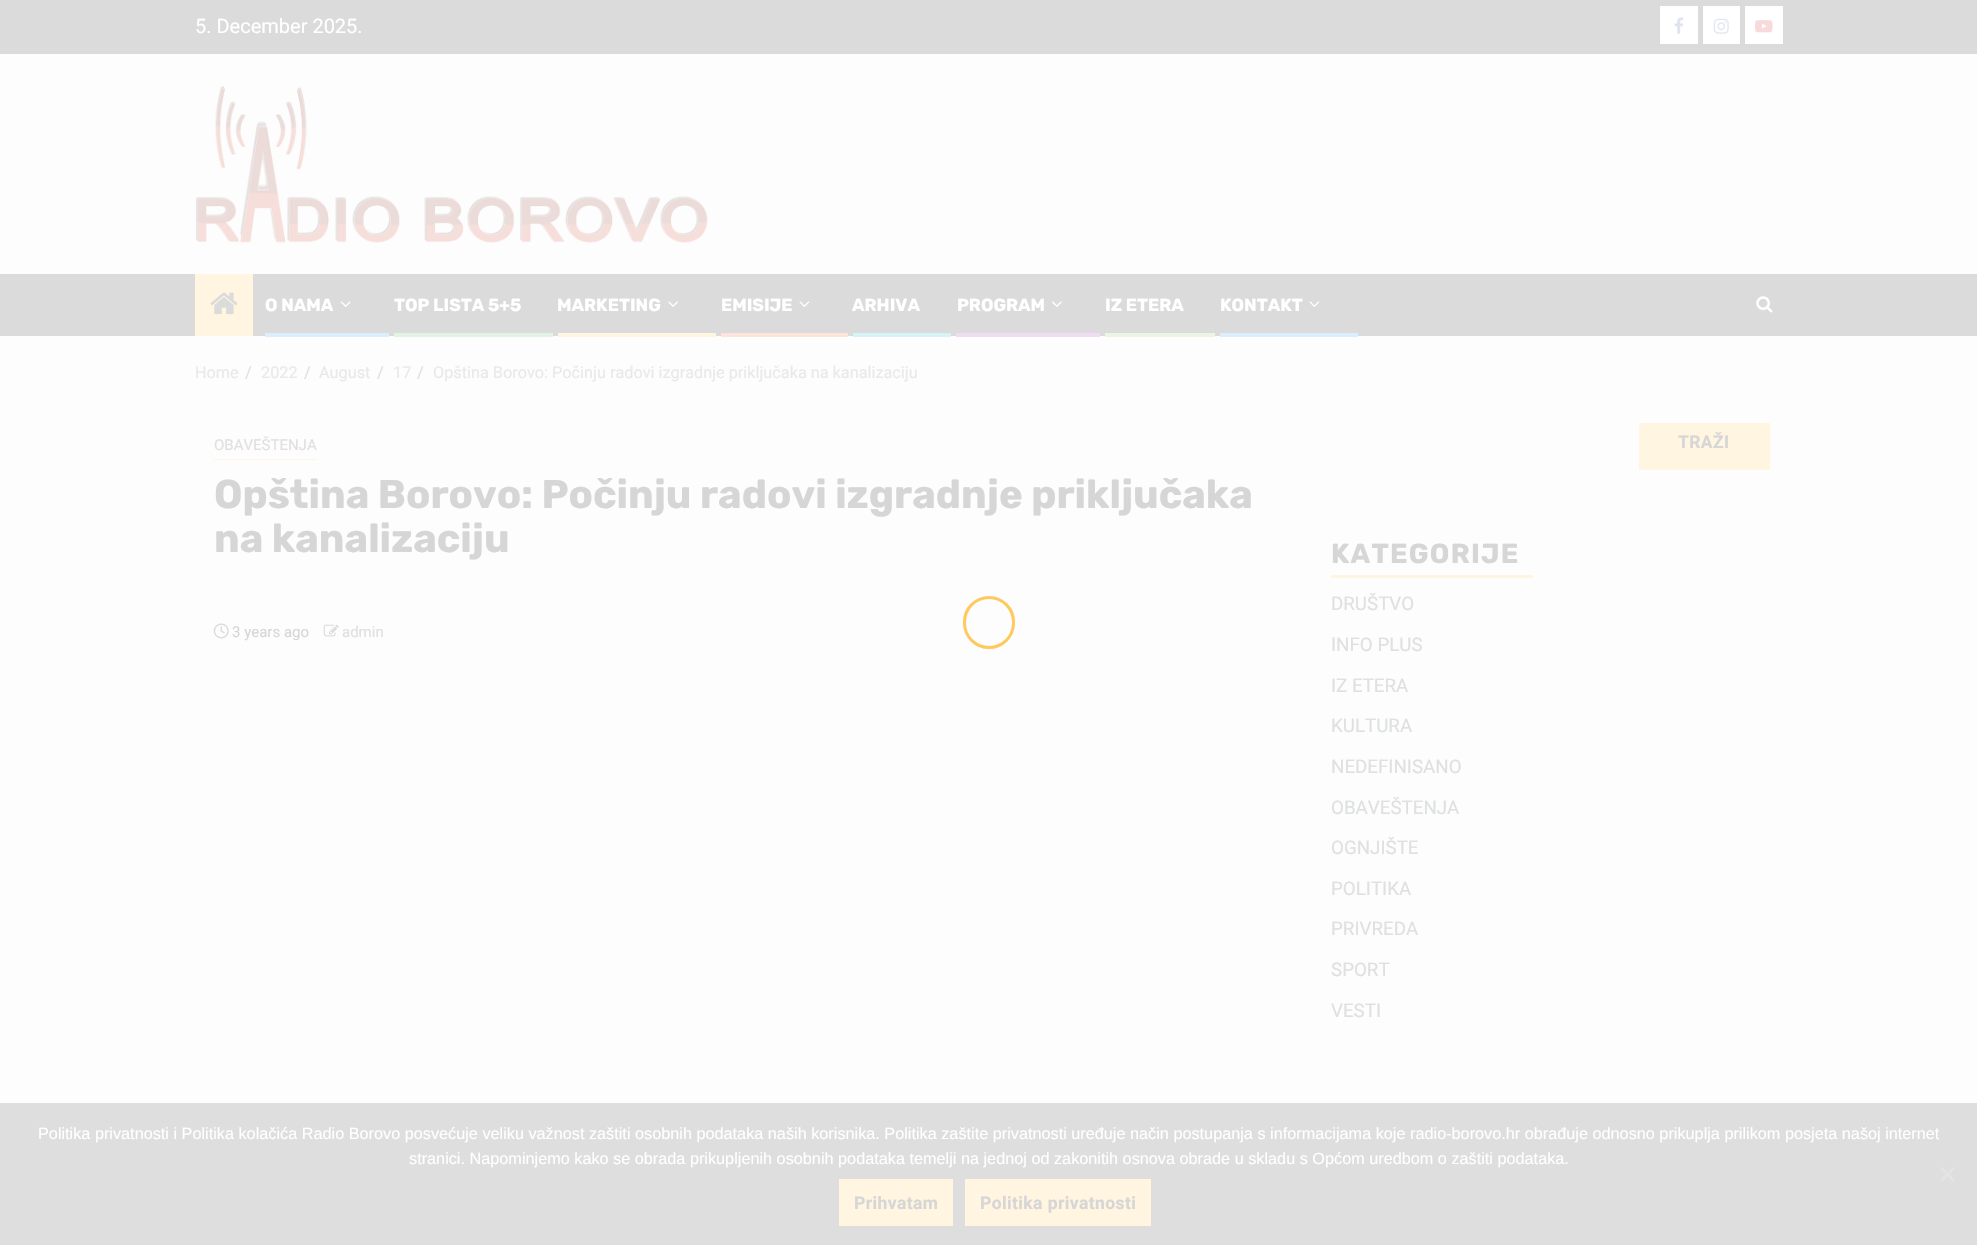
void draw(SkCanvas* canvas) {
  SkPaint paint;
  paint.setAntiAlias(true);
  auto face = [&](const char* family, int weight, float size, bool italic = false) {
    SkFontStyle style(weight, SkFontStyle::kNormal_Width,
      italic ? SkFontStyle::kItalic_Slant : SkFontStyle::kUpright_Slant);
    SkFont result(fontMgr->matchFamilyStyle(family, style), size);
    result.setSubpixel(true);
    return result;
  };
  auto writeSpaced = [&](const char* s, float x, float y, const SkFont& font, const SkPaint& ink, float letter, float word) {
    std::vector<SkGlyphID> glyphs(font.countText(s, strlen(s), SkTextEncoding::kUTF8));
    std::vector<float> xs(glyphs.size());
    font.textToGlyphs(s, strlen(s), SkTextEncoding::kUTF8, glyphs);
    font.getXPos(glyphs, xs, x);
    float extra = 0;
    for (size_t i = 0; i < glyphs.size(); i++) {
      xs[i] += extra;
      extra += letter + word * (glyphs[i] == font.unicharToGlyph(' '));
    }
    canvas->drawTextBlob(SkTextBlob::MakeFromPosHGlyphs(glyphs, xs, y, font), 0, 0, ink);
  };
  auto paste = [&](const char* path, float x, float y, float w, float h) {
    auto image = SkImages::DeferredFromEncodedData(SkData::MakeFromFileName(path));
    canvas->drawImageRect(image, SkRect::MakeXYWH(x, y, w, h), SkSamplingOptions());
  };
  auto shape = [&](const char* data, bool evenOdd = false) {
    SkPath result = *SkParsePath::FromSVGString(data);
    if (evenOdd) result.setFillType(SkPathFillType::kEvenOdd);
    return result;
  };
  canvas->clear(0xfffdfdfd);
  paint.setColor(0xffdbdbdb);
  canvas->drawRect(SkRect::MakeXYWH(0, 0, 1977, 54), paint);
  paint.setColor(0xffffffff);
  canvas->drawRect(SkRect::MakeXYWH(1660, 6, 38, 38), paint);
  paste("img/1.png", 1674, 17, 10, 17);
  canvas->drawRect(SkRect::MakeXYWH(1703, 6, 37, 38), paint);
  paste("img/2.png", 1713, 18, 16, 16);
  canvas->drawRect(SkRect::MakeXYWH(1745, 6, 38, 38), paint);
  paste("img/3.png", 1755, 20, 18, 13);
  paste("img/4.png", 195, 86, 513, 157);
  paint.setColor(0xffdbdbdb);
  canvas->drawRect(SkRect::MakeXYWH(0, 274, 1977, 62), paint);
  paint.setColor(0xfffff5e0);
  canvas->drawRect(SkRect::MakeXYWH(195, 274, 58, 62), paint);
  paste("img/5.png", 210, 292, 28, 23);
  paste("img/6.png", 340, 301, 11, 6);
  paint.setColor(0xffdbeefd);
  canvas->drawRect(SkRect::MakeXYWH(265, 333, 124, 4), paint);
  paint.setColor(0xffe2f2e3);
  canvas->drawRect(SkRect::MakeXYWH(394, 333, 159, 4), paint);
  paste("img/7.png", 668, 301, 10, 6);
  paint.setColor(0xfffff5e0);
  canvas->drawRect(SkRect::MakeXYWH(558, 333, 158, 4), paint);
  paste("img/8.png", 799, 301, 11, 6);
  paint.setColor(0xffffe4dc);
  canvas->drawRect(SkRect::MakeXYWH(721, 333, 127, 4), paint);
  paint.setColor(0xffd6f4f8);
  canvas->drawRect(SkRect::MakeXYWH(853, 333, 98, 4), paint);
  paste("img/9.png", 1052, 301, 10, 6);
  paint.setColor(0xffefdcf2);
  canvas->drawRect(SkRect::MakeXYWH(956, 333, 144, 4), paint);
  paint.setColor(0xffecf5e2);
  canvas->drawRect(SkRect::MakeXYWH(1105, 333, 110, 4), paint);
  paste("img/8.png", 1309, 301, 11, 6);
  paint.setColor(0xffdbeefd);
  canvas->drawRect(SkRect::MakeXYWH(1220, 333, 138, 4), paint);
  paste("img/10.png", 1756, 296, 17, 17);
  paint.setColor(0xfffff5e0);
  canvas->drawRect(SkRect::MakeXYWH(214, 459, 102, 1), paint);
  paste("img/11.png", 213, 623, 16, 16);
  paste("img/12.png", 323, 624, 16, 13);
  {
    const struct { float x, y, w, h; SkColor color; } items[] = {
      {1639, 423, 131, 47, 0xfffff5e0},
      {1331, 575, 202, 3, 0xfffff5e0},
      {0, 1103, 1977, 142, 0xffdededf},
    };
    for (auto [x, y, w, h, color] : items) {
      paint.setColor(color);
      canvas->drawRect(SkRect::MakeXYWH(x, y, w, h), paint);
    }
  }
  paint.setColor(0xffe4e4e5);
  canvas->drawPath(shape("M1953 1167L1955 1168.5L1942 1182L1940 1180Z"), paint);
  canvas->drawPath(shape("M1940 1168.5L1942 1167L1955 1180L1953 1182Z"), paint);
  paint.setColor(0xfffff5e0);
  canvas->drawRect(SkRect::MakeXYWH(839, 1179, 114, 47), paint);
  canvas->drawRect(SkRect::MakeXYWH(965, 1179, 186, 47), paint);
  paint.setStroke(true);
  paint.setStrokeWidth(3);
  paint.setColor(0xffffc95d);
  canvas->drawRoundRect(SkRect::MakeXYWH(964.5f, 597.5f, 49, 50), 24.5f, 24.5f, paint);
  auto f0 = face("Roboto", 400, 20);
  paint.setStroke(false);
  paint.setColor(0xffffffff);
  canvas->drawString("5. December 2025.", 195, 33, f0, paint);
  auto f1 = face("Rubik", 700, 17.5f);
  {
    const struct { const char* s; float x, y; } items[] = {
      {"O NAMA", 265, 311},
      {"TOP LISTA 5+5", 394, 311},
      {"MARKETING", 557, 311},
      {"EMISIJE", 721, 311},
      {"ARHIVA", 852, 311},
      {"PROGRAM", 957, 311},
      {"IZ ETERA", 1105, 311},
      {"KONTAKT", 1220, 311},
    };
    for (auto [s, x, y] : items) {
      canvas->drawString(s, x, y, f1, paint);
    }
  }
  auto f2 = face("Roboto", 400, 16.25f);
  paint.setColor(0xffe9e9e9);
  canvas->drawString("Home", 195, 378, f2, paint);
  paint.setColor(0xffdfe0e1);
  canvas->drawString("/", 245, 378, f2, paint);
  paint.setColor(0xffe9e9e9);
  canvas->drawString("2022", 261, 378, f2, paint);
  paint.setColor(0xffdfe0e1);
  canvas->drawString("/", 304, 378, f2, paint);
  paint.setColor(0xffe9e9e9);
  canvas->drawString("August", 319, 378, f2, paint);
  paint.setColor(0xffdfe0e1);
  canvas->drawString("/", 377, 378, f2, paint);
  paint.setColor(0xffe9e9e9);
  canvas->drawString("17", 393, 378, f2, paint);
  paint.setColor(0xffdfe0e1);
  canvas->drawString("/", 417, 378, f2, paint);
  paint.setColor(0xffe9e9e9);
  canvas->drawString("Opština Borovo: Počinju radovi izgradnje priključaka na kanalizaciju", 433, 378, f2, paint);
  auto f3 = face("Roboto", 400, 15);
  paint.setColor(0xffdfe0e1);
  canvas->drawString("OBAVEŠTENJA", 214, 450, f3, paint);
  auto f4 = face("Rubik", 700, 40);
  paint.setColor(0xffd6d6d6);
  canvas->drawString("Opština Borovo: Počinju radovi izgradnje priključaka", 214, 508, f4, paint);
  canvas->drawString("na kanalizaciju", 214, 552, f4, paint);
  canvas->drawString("3 years ago", 232, 637, f3, paint);
  paint.setColor(0xffdfe0e1);
  canvas->drawString("admin", 342, 637, f3, paint);
  auto f5 = face("Roboto", 700, 17.5f);
  paint.setColor(0xffd6d6d6);
  writeSpaced("TRAŽI", 1678, 448, f5, paint, 0.4f, 0);
  auto f6 = face("Rubik", 700, 27.5f);
  writeSpaced("KATEGORIJE", 1331, 563, f6, paint, 1.25f, 0);
  auto f7 = face("Roboto", 400, 18.75f);
  paint.setColor(0xffdfe0e1);
  {
    const struct { const char* s; float x, y; } items[] = {
      {"DRUŠTVO", 1331, 610},
      {"INFO PLUS", 1331, 651},
      {"IZ ETERA", 1331, 692},
      {"KULTURA", 1331, 732},
      {"NEDEFINISANO", 1331, 773},
      {"OBAVEŠTENJA", 1331, 814},
      {"OGNJIŠTE", 1331, 854},
      {"POLITIKA", 1331, 895},
      {"PRIVREDA", 1331, 935},
      {"SPORT", 1331, 976},
      {"VESTI", 1331, 1017},
    };
    for (auto [s, x, y] : items) {
      canvas->drawString(s, x, y, f7, paint);
    }
  }
  auto f8 = face("Liberation Sans", 400, 16.25f);
  paint.setColor(0xffffffff);
  canvas->drawString("Politika privatnosti i Politika kolačića Radio Borovo posvećuje veliku važnost zaštiti osobnih podataka naših korisnika. Politika zaštite privatnosti uređuje način postupanja s informacijama koje radio-borovo.hr obrađuje odnosno prikuplja prilikom posjeta našoj internet", 38, 1139, f8, paint);
  canvas->drawString("stranici. Napominjemo kako se obrada prikupljenih osobnih podataka temelji na jednoj od zakonitih osnova obrade u skladu s Općom uredbom o zaštiti podataka.", 409, 1164, f8, paint);
  paint.setColor(0xffd6d6d6);
  writeSpaced("Prihvatam", 854, 1209, f5, paint, 0.4f, 0);
  writeSpaced("Politika privatnosti", 980, 1209, f5, paint, 0.4f, 0);
}
